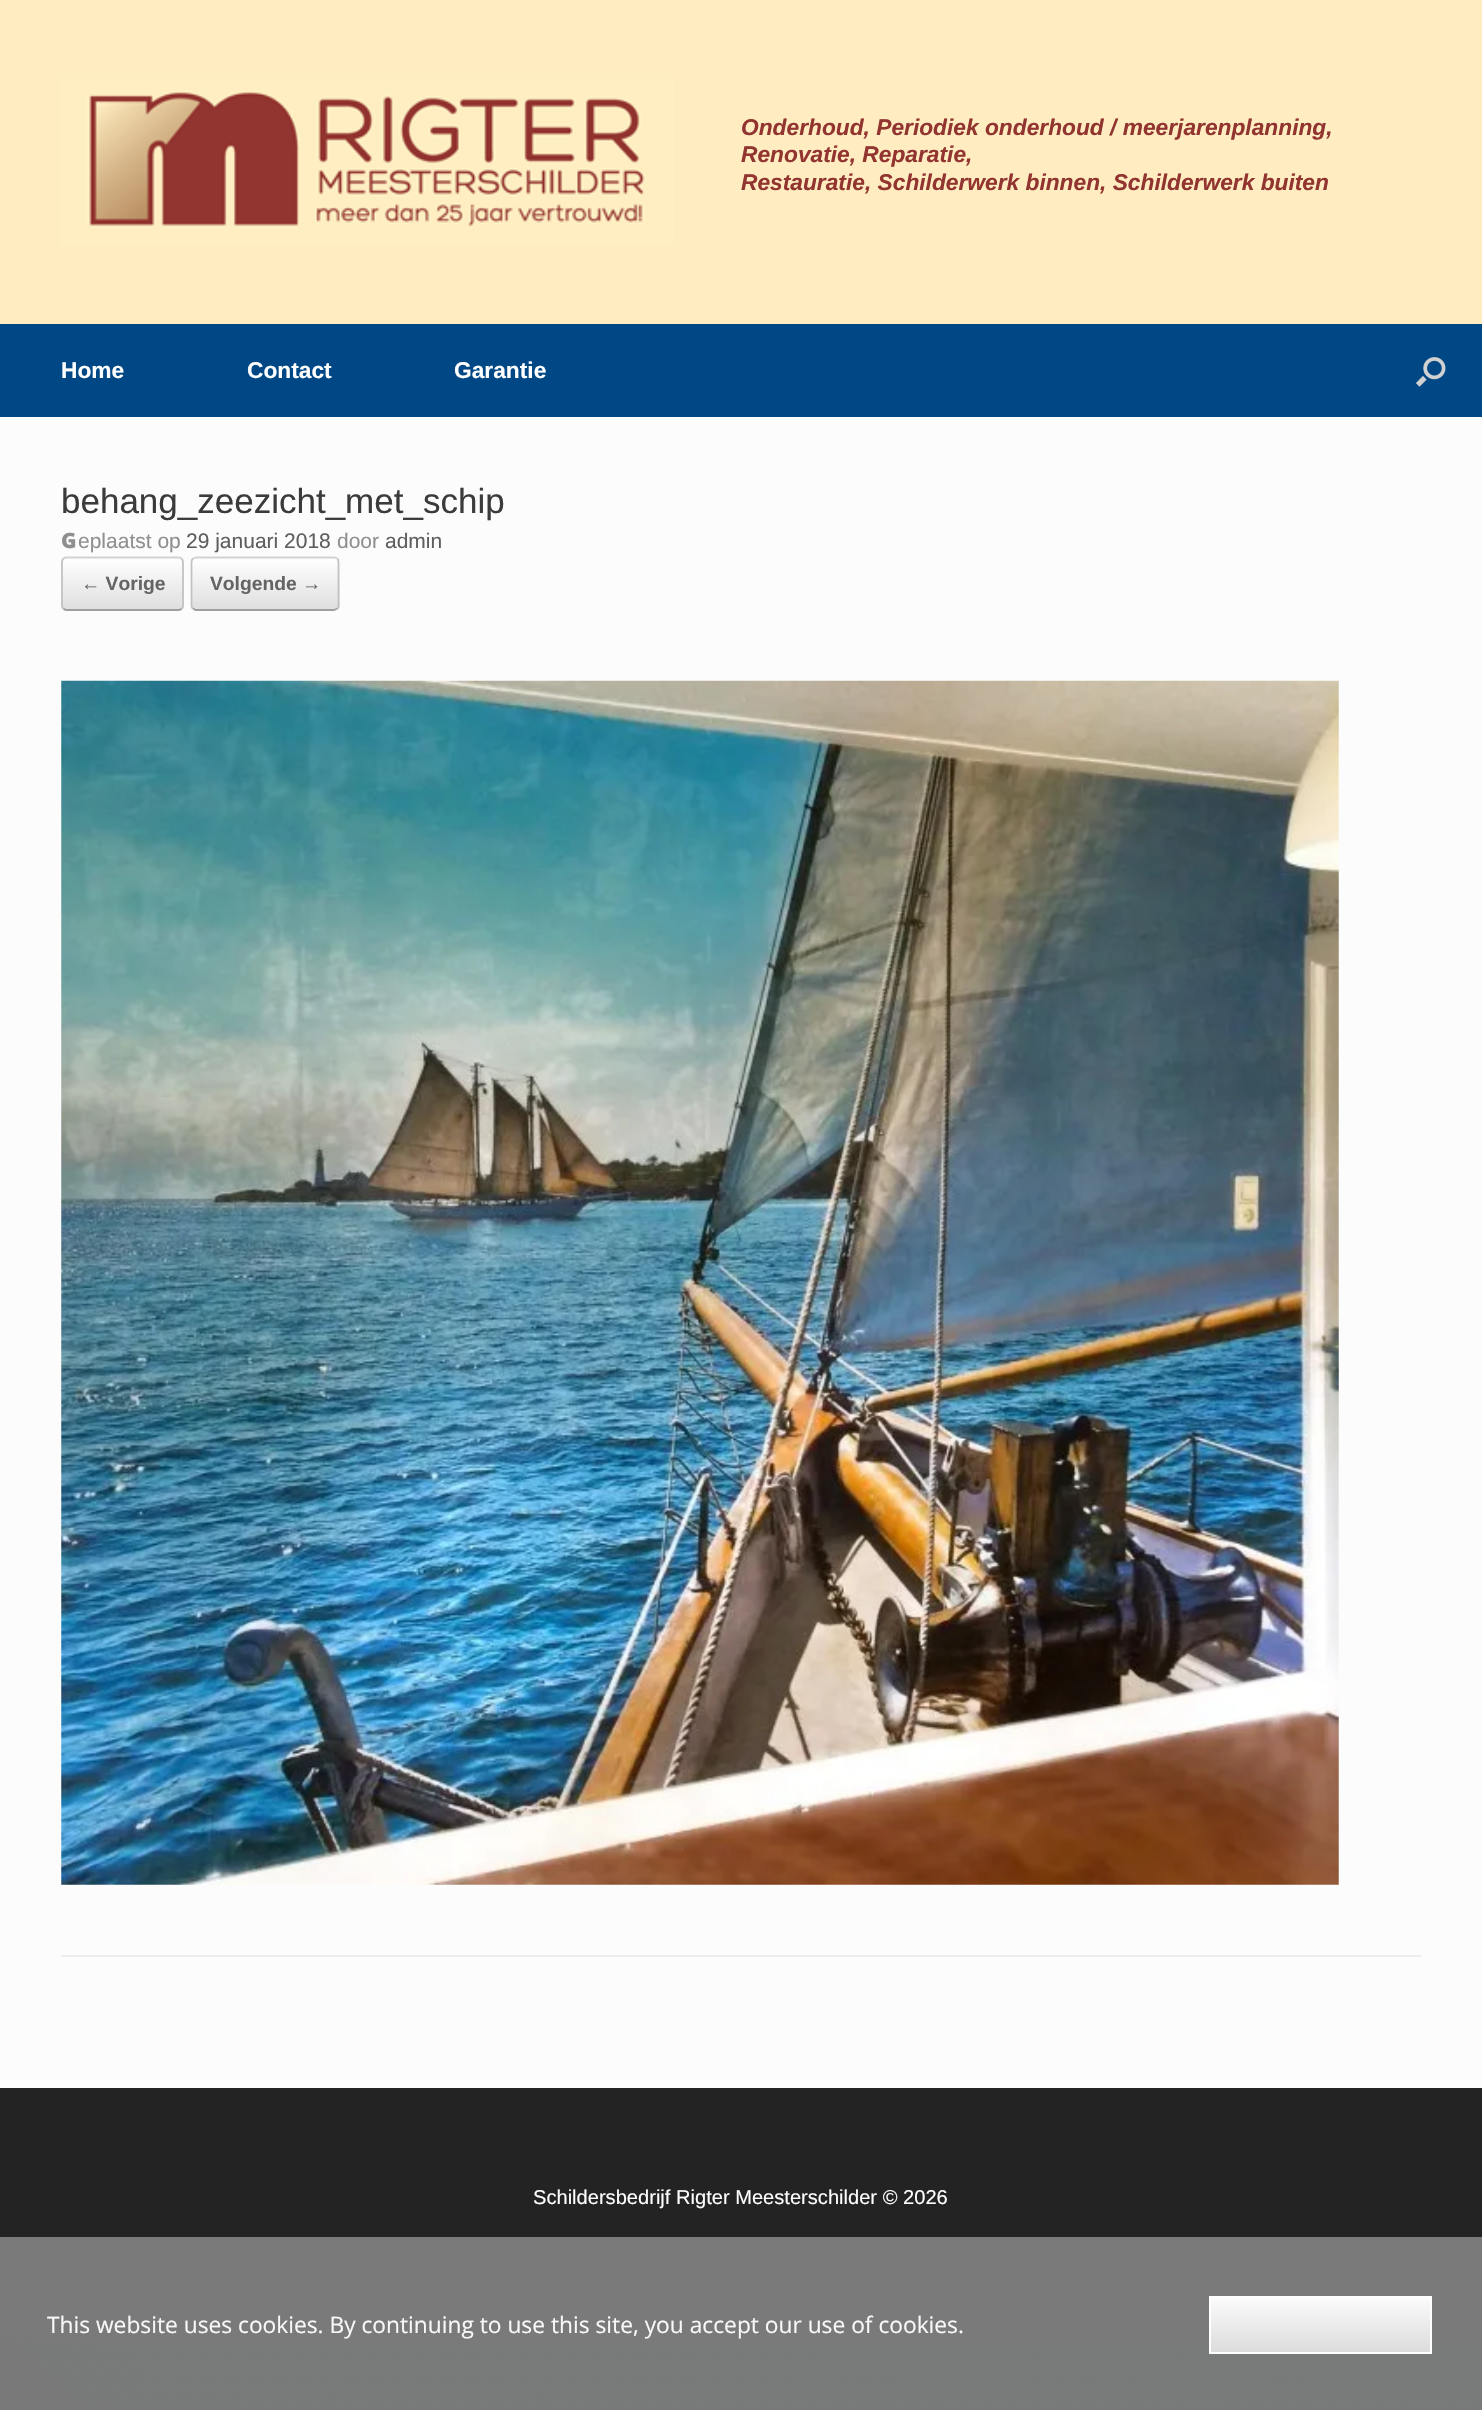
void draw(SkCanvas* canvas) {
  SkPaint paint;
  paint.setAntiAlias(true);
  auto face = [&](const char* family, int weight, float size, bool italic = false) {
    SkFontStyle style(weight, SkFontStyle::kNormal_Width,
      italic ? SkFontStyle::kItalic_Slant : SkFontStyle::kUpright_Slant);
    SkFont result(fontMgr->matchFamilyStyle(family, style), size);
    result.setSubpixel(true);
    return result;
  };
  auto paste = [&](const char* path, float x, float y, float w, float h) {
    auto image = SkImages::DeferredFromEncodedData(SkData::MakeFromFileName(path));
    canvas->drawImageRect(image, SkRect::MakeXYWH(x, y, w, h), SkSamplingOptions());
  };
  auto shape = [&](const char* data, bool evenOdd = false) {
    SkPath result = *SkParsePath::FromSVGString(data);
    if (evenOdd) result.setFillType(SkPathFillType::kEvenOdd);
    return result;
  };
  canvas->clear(0xffffffff);
  paste("img/1.png", 0, 2340, 1482, 70);
  paint.setColor(0xffffecc1);
  canvas->drawRect(SkRect::MakeXYWH(0, 0, 1482, 324), paint);
  paste("img/2.png", 61, 79, 613, 166);
  paint.setColor(0xff004785);
  canvas->drawRect(SkRect::MakeXYWH(0, 324, 1482, 93), paint);
  paste("img/3.png", 1416, 357, 30, 30);
  paint.setColor(0xfffcfcfc);
  canvas->drawRect(SkRect::MakeXYWH(0, 417, 1482, 1671), paint);
  paint.setColor(0xffeeeeee);
  canvas->drawRect(SkRect::MakeXYWH(61, 1955, 1360, 2), paint);
  canvas->save();
  canvas->clipPath(shape("M66 557H179C182 557 184 559 184 562V606C184 609 182 611 179 611H66C63 611 61 609 61 606V562C61 559 63 557 66 557Z"), true);
  {
    const SkColor colors[] = {0xffdfdfdf, 0xffffffff};
    const float stops[] = {0, 1};
    const SkPoint ends[] = {{63, 609}, {63, 558}};
    paint.setShader(SkGradientShader::MakeLinear(ends, colors, stops, 2, SkTileMode::kClamp));
    paint.setAlpha(255);
  }
  canvas->drawRect(SkRect::MakeXYWH(61, 558, 123, 51), paint);
  {
    const SkColor colors[] = {0xffdfdfdf, 0xffffffff};
    const float stops[] = {0, 1};
    const SkPoint ends[] = {{63, 660}, {63, 609}};
    paint.setShader(SkGradientShader::MakeLinear(ends, colors, stops, 2, SkTileMode::kClamp));
    paint.setAlpha(255);
  }
  canvas->drawRect(SkRect::MakeXYWH(61, 609, 123, 2), paint);
  canvas->restore();
  paint.setStroke(true);
  paint.setStrokeWidth(1.8f);
  paint.setShader(nullptr);
  paint.setColor(0xffd2d2d2);
  canvas->drawPath(shape("M63.5 558.5C64 558 65.5 557.5 66.5 557.5H178.5C179.5 557.5 181 558 181.5 558.5"), paint);
  paint.setColor(0xffc3c3c3);
  canvas->drawPath(shape("M181.5 558.5C182.5 559.5 183 560.5 183 562V605.5C183 606.5 182.5 608 181.5 608.5"), paint);
  paint.setColor(0xff9f9f9f);
  canvas->drawPath(shape("M181.5 608.5C181 609.5 179.5 610 178.5 610H66.5C65.5 610 64 609.5 63.5 608.5"), paint);
  paint.setColor(0xffc3c3c3);
  canvas->drawPath(shape("M63.5 608.5C62.5 608 62 606.5 62 605.5V562C62 560.5 62.5 559.5 63.5 558.5"), paint);
  canvas->save();
  canvas->clipPath(shape("M196 557H335C338 557 340 559 340 562V606C340 609 338 611 335 611H196C193 611 191 609 191 606V562C191 559 193 557 196 557Z"), true);
  paint.setStroke(false);
  {
    const SkColor colors[] = {0xffdfdfdf, 0xffffffff};
    const float stops[] = {0, 1};
    const SkPoint ends[] = {{193, 609}, {193, 558}};
    paint.setShader(SkGradientShader::MakeLinear(ends, colors, stops, 2, SkTileMode::kClamp));
    paint.setAlpha(255);
  }
  canvas->drawRect(SkRect::MakeXYWH(191, 558, 149, 51), paint);
  {
    const SkColor colors[] = {0xffdfdfdf, 0xffffffff};
    const float stops[] = {0, 1};
    const SkPoint ends[] = {{193, 660}, {193, 609}};
    paint.setShader(SkGradientShader::MakeLinear(ends, colors, stops, 2, SkTileMode::kClamp));
    paint.setAlpha(255);
  }
  canvas->drawRect(SkRect::MakeXYWH(191, 609, 149, 2), paint);
  canvas->restore();
  paint.setStroke(true);
  paint.setShader(nullptr);
  paint.setColor(0xffd2d2d2);
  canvas->drawPath(shape("M193 558.5L196 557.5H334.5L337.5 558.5"), paint);
  paint.setColor(0xffc3c3c3);
  canvas->drawPath(shape("M337.5 558.5C338 559.5 338.5 560.5 338.5 562V605.5C338.5 606.5 338 608 337.5 608.5"), paint);
  paint.setColor(0xff9f9f9f);
  canvas->drawPath(shape("M337.5 608.5L334 610H195.5L193 608.5"), paint);
  paint.setColor(0xffc3c3c3);
  canvas->drawPath(shape("M193 608.5C192 608 191.5 606.5 191.5 605.5V562C191.5 560.5 192 559.5 193 558.5"), paint);
  paste("img/4.png", 61, 680, 1278, 1205);
  paint.setStroke(false);
  paint.setColor(0xff232323);
  canvas->drawRect(SkRect::MakeXYWH(0, 2088, 1482, 252), paint);
  paint.setColor(0xf77c7c7c);
  canvas->drawRect(SkRect::MakeXYWH(0, 2237, 1482, 173), paint);
  {
    const SkColor colors[] = {0xffd9d9d9, 0xfff8f8f8};
    const float stops[] = {0, 1};
    const SkPoint ends[] = {{1211, 2298}, {1211, 2244}};
    paint.setShader(SkGradientShader::MakeLinear(ends, colors, stops, 2, SkTileMode::kClamp));
    paint.setAlpha(255);
  }
  canvas->drawRect(SkRect::MakeXYWH(1209, 2296, 223, 2), paint);
  {
    const SkColor colors[] = {0xffdcdcdc, 0xfffbfbfb};
    const float stops[] = {0, 1};
    const SkPoint ends[] = {{1211, 2352}, {1211, 2298}};
    paint.setShader(SkGradientShader::MakeLinear(ends, colors, stops, 2, SkTileMode::kClamp));
    paint.setAlpha(255);
  }
  canvas->drawRect(SkRect::MakeXYWH(1209, 2298, 223, 54), paint);
  {
    const SkColor colors[] = {0xffdcdcdc, 0xfffbfbfb};
    const float stops[] = {0, 1};
    const SkPoint ends[] = {{1211, 2406}, {1211, 2352}};
    paint.setShader(SkGradientShader::MakeLinear(ends, colors, stops, 2, SkTileMode::kClamp));
    paint.setAlpha(255);
  }
  canvas->drawRect(SkRect::MakeXYWH(1209, 2352, 223, 2), paint);
  paint.setStroke(true);
  paint.setStrokeWidth(2);
  paint.setShader(nullptr);
  paint.setColor(0xf7ffffff);
  canvas->drawRect(SkRect::MakeXYWH(1210, 2297, 221, 56), paint);
  auto f0 = face("Liberation Sans", 700, 22.75f, true);
  paint.setStroke(false);
  paint.setColor(0xff92342f);
  {
    const struct { const char* s; float x, y; } items[] = {
      {"Onderhoud, Periodiek onderhoud / meerjarenplanning,", 741, 135},
      {"Renovatie, Reparatie,", 741, 162},
      {"Restauratie, Schilderwerk binnen, Schilderwerk buiten", 741, 190},
    };
    for (auto [s, x, y] : items) {
      canvas->drawString(s, x, y, f0, paint);
    }
  }
  auto f1 = face("Liberation Sans", 700, 22.75f);
  paint.setColor(0xffffffff);
  {
    const struct { const char* s; float x, y; } items[] = {
      {"Home", 61, 378},
      {"Contact", 247, 378},
      {"Garantie", 454, 378},
    };
    for (auto [s, x, y] : items) {
      canvas->drawString(s, x, y, f1, paint);
    }
  }
  auto f2 = face("Liberation Sans", 400, 35);
  paint.setColor(0xff3b3b3b);
  canvas->drawString("behang_zeezicht_met_schip", 61, 513, f2, paint);
  auto f3 = face("Noto Sans", 900, 21);
  paint.setColor(0xff8f8f8f);
  canvas->drawString("G", 61, 548, f3, paint);
  auto f4 = face("Liberation Sans", 400, 21);
  canvas->drawString("eplaatst op", 78, 548, f4, paint);
  paint.setColor(0xff5e5e5e);
  canvas->drawString("29 januari 2018", 186, 548, f4, paint);
  paint.setColor(0xff8f8f8f);
  canvas->drawString("door", 337, 548, f4, paint);
  paint.setColor(0xff5e5e5e);
  canvas->drawString("admin", 385, 548, f4, paint);
  auto f5 = face("Liberation Sans", 700, 19.25f);
  paint.setColor(0xff646464);
  canvas->drawString("← Vorige", 81, 590, f5, paint);
  canvas->drawString("Volgende →", 210, 590, f5, paint);
  auto f6 = face("Liberation Sans", 400, 20.1f);
  paint.setColor(0xffffffff);
  canvas->drawString("Schildersbedrijf Rigter Meesterschilder © 2026", 533, 2204, f6, paint);
  auto f7 = face("Open Sans", 400, 22.75f);
  paint.setColor(0xfff8f8f8);
  canvas->drawString("This website uses cookies. By continuing to use this site, you accept our use of cookies.", 47, 2333, f7, paint);
}
